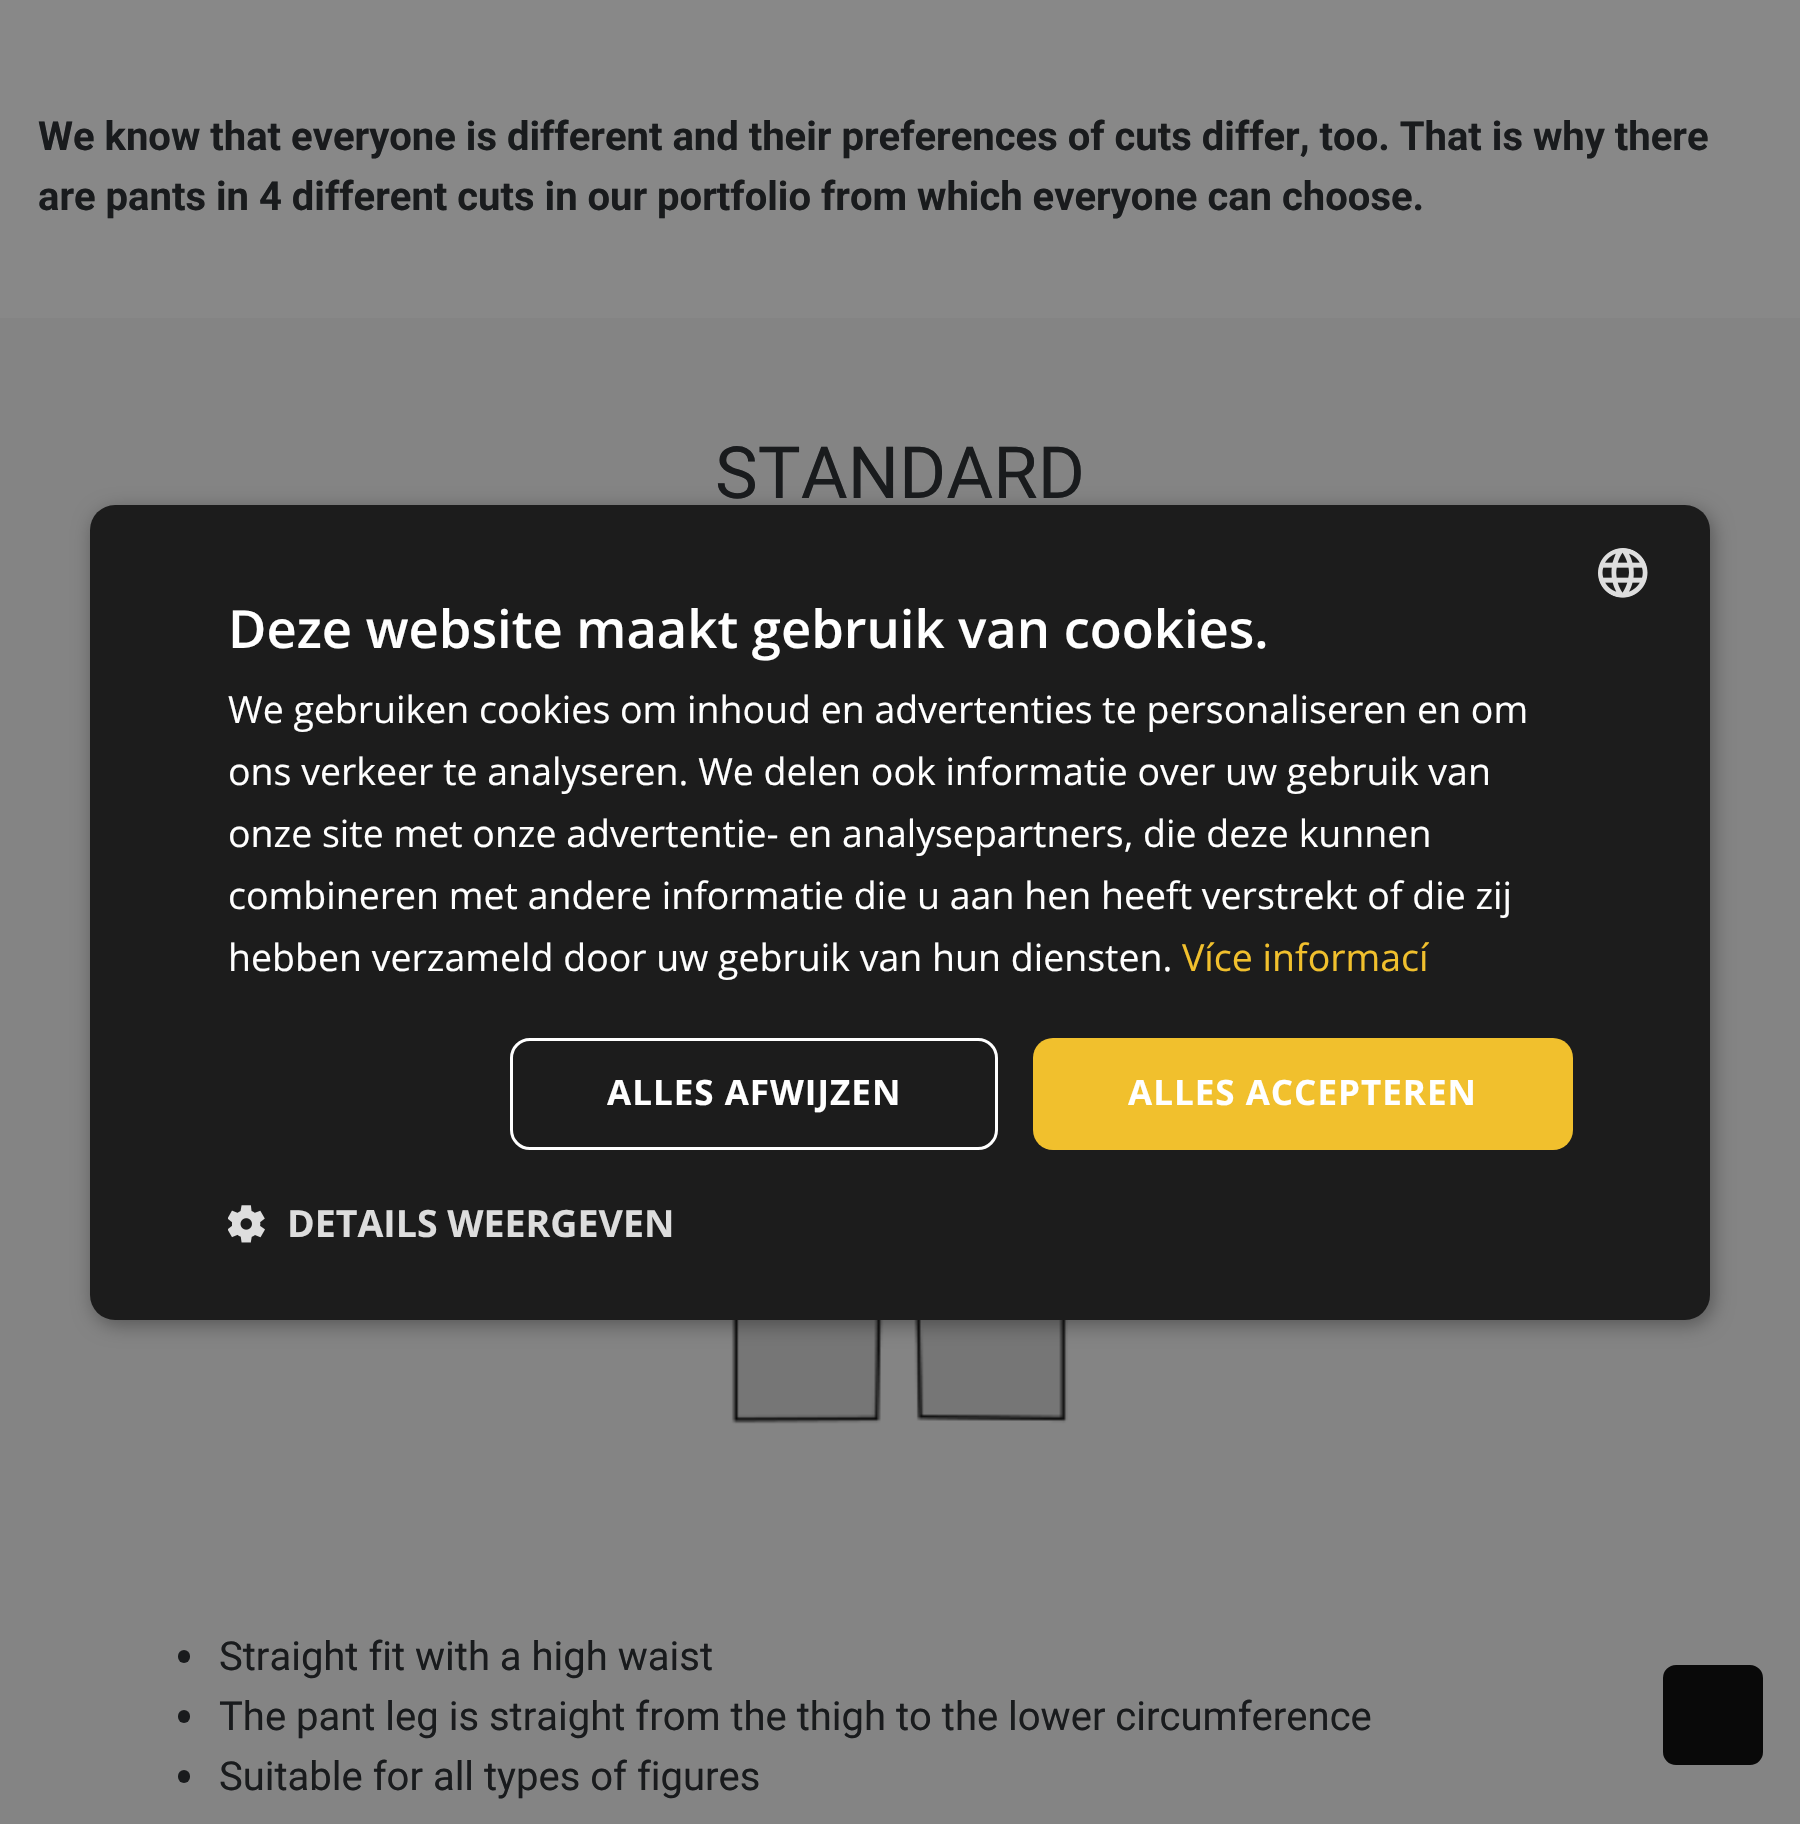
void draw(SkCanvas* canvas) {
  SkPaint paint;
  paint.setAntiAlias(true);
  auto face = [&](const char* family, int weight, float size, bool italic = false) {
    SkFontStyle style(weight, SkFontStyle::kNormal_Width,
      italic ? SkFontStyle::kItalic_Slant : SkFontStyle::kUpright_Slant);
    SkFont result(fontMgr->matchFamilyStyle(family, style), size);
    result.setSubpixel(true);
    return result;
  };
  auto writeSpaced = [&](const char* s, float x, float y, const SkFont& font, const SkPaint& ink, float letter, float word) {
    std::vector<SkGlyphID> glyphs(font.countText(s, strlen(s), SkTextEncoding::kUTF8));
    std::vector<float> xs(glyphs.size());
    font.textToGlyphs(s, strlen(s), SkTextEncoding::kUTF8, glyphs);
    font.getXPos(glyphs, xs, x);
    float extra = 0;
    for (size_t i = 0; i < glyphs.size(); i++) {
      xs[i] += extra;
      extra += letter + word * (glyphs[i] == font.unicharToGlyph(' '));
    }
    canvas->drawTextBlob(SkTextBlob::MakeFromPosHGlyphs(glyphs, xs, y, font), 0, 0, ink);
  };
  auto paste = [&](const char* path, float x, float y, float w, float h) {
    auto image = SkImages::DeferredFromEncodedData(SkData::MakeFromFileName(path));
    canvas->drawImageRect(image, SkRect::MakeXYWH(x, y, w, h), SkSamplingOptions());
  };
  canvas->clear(0xff888888);
  paint.setColor(0xff848484);
  canvas->drawRect(SkRect::MakeXYWH(0, 318, 1800, 1506), paint);
  paste("img/1.png", 731, 1320, 337, 104);
  paint.setColor(0xff191b1d);
  canvas->drawRoundRect(SkRect::MakeXYWH(178, 1650, 12, 13), 6, 6, paint);
  canvas->drawRoundRect(SkRect::MakeXYWH(178, 1710, 12, 13), 6, 6, paint);
  canvas->drawRoundRect(SkRect::MakeXYWH(178, 1770, 12, 13), 6, 6, paint);
  paint.setColor(0xff090909);
  canvas->drawRoundRect(SkRect::MakeXYWH(1664.5f, 1666.5f, 97, 97), 11.5f, 11.5f, paint);
  paint.setStroke(true);
  paint.setStrokeWidth(3);
  canvas->drawRoundRect(SkRect::MakeXYWH(1664.5f, 1666.5f, 97, 97), 11.5f, 11.5f, paint);
  paint.setStroke(false);
  paint.setColor(0x59000000);
  paint.setMaskFilter(SkMaskFilter::MakeBlur(kNormal_SkBlurStyle, 10));
  canvas->drawRoundRect(SkRect::MakeXYWH(93, 510, 1620, 815), 25, 25, paint);
  paint.setMaskFilter(nullptr);
  paint.setColor(0xff1c1c1c);
  canvas->drawRoundRect(SkRect::MakeXYWH(90, 505, 1620, 815), 25, 25, paint);
  paste("img/2.png", 1598, 548, 50, 50);
  paint.setStroke(true);
  paint.setColor(0xffffffff);
  canvas->drawRoundRect(SkRect::MakeXYWH(511.5f, 1039.5f, 485, 109), 18.5f, 18.5f, paint);
  paint.setStroke(false);
  paint.setColor(0xfff1c02d);
  canvas->drawRoundRect(SkRect::MakeXYWH(1033, 1038, 540, 112), 20, 20, paint);
  paste("img/3.png", 228, 1205, 37, 38);
  auto f0 = face("Roboto", 700, 40);
  paint.setColor(0xff191b1d);
  canvas->drawString("We know that everyone is different and their preferences of cuts differ, too. That is why there", 38, 150, f0, paint);
  canvas->drawString("are pants in 4 different cuts in our portfolio from which everyone can choose.", 38, 210, f0, paint);
  auto f1 = face("Roboto", 400, 72);
  canvas->drawString("STANDARD", 715, 498, f1, paint);
  auto f2 = face("Roboto", 400, 40);
  {
    const struct { const char* s; float x, y; } items[] = {
      {"Straight fit with a high waist", 219, 1670},
      {"The pant leg is straight from the thigh to the lower circumference", 219, 1730},
      {"Suitable for all types of figures", 219, 1790},
    };
    for (auto [s, x, y] : items) {
      canvas->drawString(s, x, y, f2, paint);
    }
  }
  auto f3 = face("Open Sans", 600, 52.5f);
  paint.setColor(0xffffffff);
  canvas->drawString("Deze website maakt gebruik van cookies.", 228, 648, f3, paint);
  auto f4 = face("Open Sans", 400, 37.5f);
  {
    const struct { const char* s; float x, y; } items[] = {
      {"We gebruiken cookies om inhoud en advertenties te personaliseren en om", 228, 723},
      {"ons verkeer te analyseren. We delen ook informatie over uw gebruik van", 228, 785},
      {"onze site met onze advertentie- en analysepartners, die deze kunnen", 228, 847},
      {"combineren met andere informatie die u aan hen heeft verstrekt of die zij", 228, 909},
      {"hebben verzameld door uw gebruik van hun diensten.", 228, 971},
    };
    for (auto [s, x, y] : items) {
      canvas->drawString(s, x, y, f4, paint);
    }
  }
  paint.setColor(0xfff1c02d);
  canvas->drawString("Více informací", 1182, 971, f4, paint);
  auto f5 = face("Open Sans", 700, 35);
  paint.setColor(0xffffffff);
  writeSpaced("ALLES AFWIJZEN", 607, 1105, f5, paint, 1, 0);
  writeSpaced("ALLES ACCEPTEREN", 1128, 1105, f5, paint, 1, 0);
  auto f6 = face("Open Sans", 700, 37.5f);
  paint.setColor(0xffdddddd);
  canvas->drawString("DETAILS WEERGEVEN", 287, 1237, f6, paint);
}
